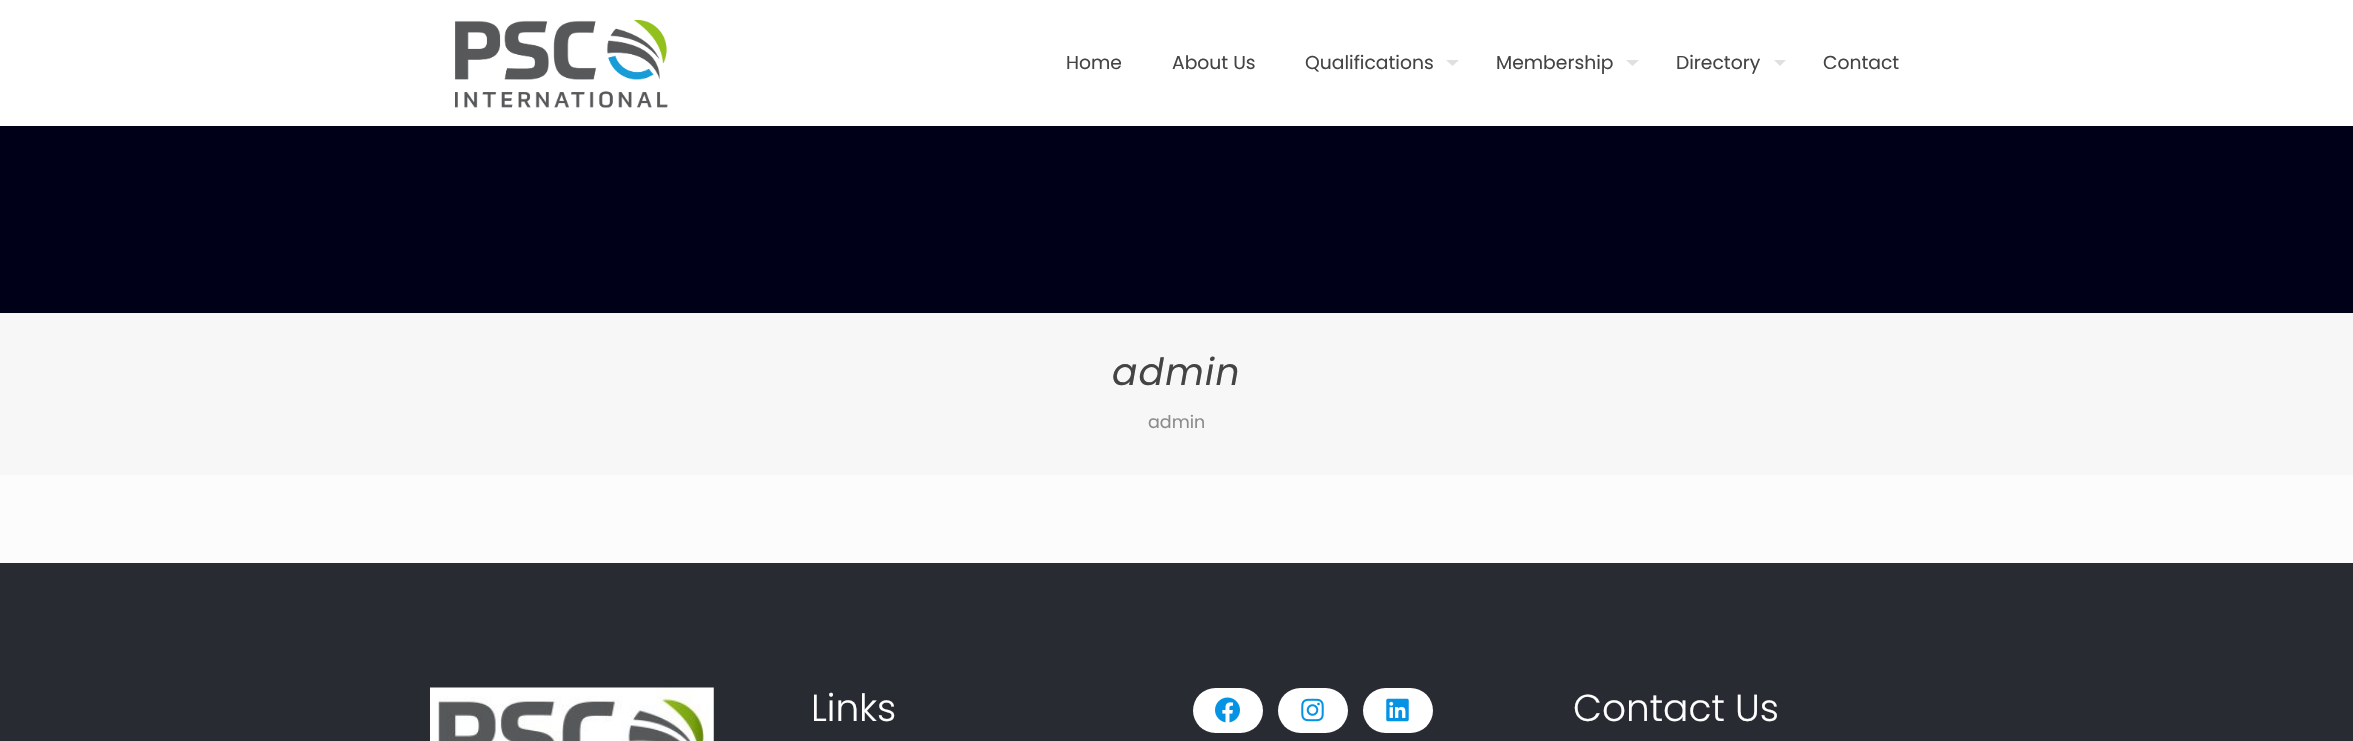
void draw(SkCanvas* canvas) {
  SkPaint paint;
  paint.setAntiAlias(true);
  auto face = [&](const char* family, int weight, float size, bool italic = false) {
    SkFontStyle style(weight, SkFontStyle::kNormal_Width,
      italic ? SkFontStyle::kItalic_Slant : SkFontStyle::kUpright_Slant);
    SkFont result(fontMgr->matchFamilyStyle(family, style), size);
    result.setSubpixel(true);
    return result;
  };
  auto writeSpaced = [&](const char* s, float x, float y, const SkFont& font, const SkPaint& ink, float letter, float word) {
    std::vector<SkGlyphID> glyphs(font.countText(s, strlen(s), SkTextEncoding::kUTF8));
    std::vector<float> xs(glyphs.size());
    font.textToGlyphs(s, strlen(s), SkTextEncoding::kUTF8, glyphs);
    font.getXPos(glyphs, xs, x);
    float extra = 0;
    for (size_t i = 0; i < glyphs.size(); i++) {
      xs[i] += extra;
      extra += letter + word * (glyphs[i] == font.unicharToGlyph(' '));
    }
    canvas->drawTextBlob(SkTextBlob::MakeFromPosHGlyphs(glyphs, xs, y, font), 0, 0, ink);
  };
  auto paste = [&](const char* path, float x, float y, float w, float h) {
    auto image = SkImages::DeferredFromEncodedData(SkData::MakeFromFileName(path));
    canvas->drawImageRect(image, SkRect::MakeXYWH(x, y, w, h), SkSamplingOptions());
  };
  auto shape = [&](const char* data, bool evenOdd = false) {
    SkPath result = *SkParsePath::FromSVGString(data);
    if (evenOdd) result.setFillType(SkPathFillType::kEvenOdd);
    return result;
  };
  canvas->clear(0xfffcfcfc);
  paint.setColor(0xff000119);
  canvas->drawRect(SkRect::MakeXYWH(0, 126, 2353, 187), paint);
  paint.setColor(0xffffffff);
  canvas->drawRect(SkRect::MakeXYWH(0, 0, 2353, 126), paint);
  paste("img/1.png", 455, 20, 213, 88);
  paint.setColor(0xffe0e0e0);
  canvas->drawPath(shape("M1446 60H1459L1452.5 66Z"), paint);
  canvas->drawPath(shape("M1626 60H1639L1632.5 66Z"), paint);
  canvas->drawPath(shape("M1774 60H1786L1780 66Z"), paint);
  paint.setColor(0xfff7f7f7);
  canvas->drawRect(SkRect::MakeXYWH(0, 313, 2353, 162), paint);
  paint.setColor(0xff292b33);
  canvas->drawRect(SkRect::MakeXYWH(0, 563, 2353, 178), paint);
  paste("img/2.png", 430, 687, 284, 54);
  paint.setColor(0xffffffff);
  canvas->drawRoundRect(SkRect::MakeXYWH(1193, 688, 70, 45), 22.5f, 22.5f, paint);
  paste("img/3.png", 1215, 697, 25, 26);
  canvas->drawRoundRect(SkRect::MakeXYWH(1278, 688, 70, 45), 22.5f, 22.5f, paint);
  paste("img/4.png", 1301, 698, 23, 24);
  canvas->drawRoundRect(SkRect::MakeXYWH(1363, 688, 70, 45), 22.5f, 22.5f, paint);
  paste("img/5.png", 1386, 698, 23, 24);
  auto f0 = face("Poppins", 400, 18.75f);
  paint.setColor(0xff444444);
  {
    const struct { const char* s; float x, y; } items[] = {
      {"Home", 1066, 69},
      {"About Us", 1172, 69},
      {"Qualifications", 1305, 69},
      {"Membership", 1496, 69},
      {"Directory", 1676, 69},
      {"Contact", 1823, 69},
    };
    for (auto [s, x, y] : items) {
      canvas->drawString(s, x, y, f0, paint);
    }
  }
  auto f1 = face("Poppins", 400, 37.5f, true);
  writeSpaced("admin", 1112, 385, f1, paint, 1.25f, 0);
  auto f2 = face("Poppins", 400, 17.5f);
  paint.setColor(0xff8c8c8c);
  canvas->drawString("admin", 1148, 428, f2, paint);
  auto f3 = face("Poppins", 300, 37.5f);
  paint.setColor(0xffffffff);
  canvas->drawString("Links", 811, 721, f3, paint);
  canvas->drawString("Contact Us", 1573, 721, f3, paint);
}
